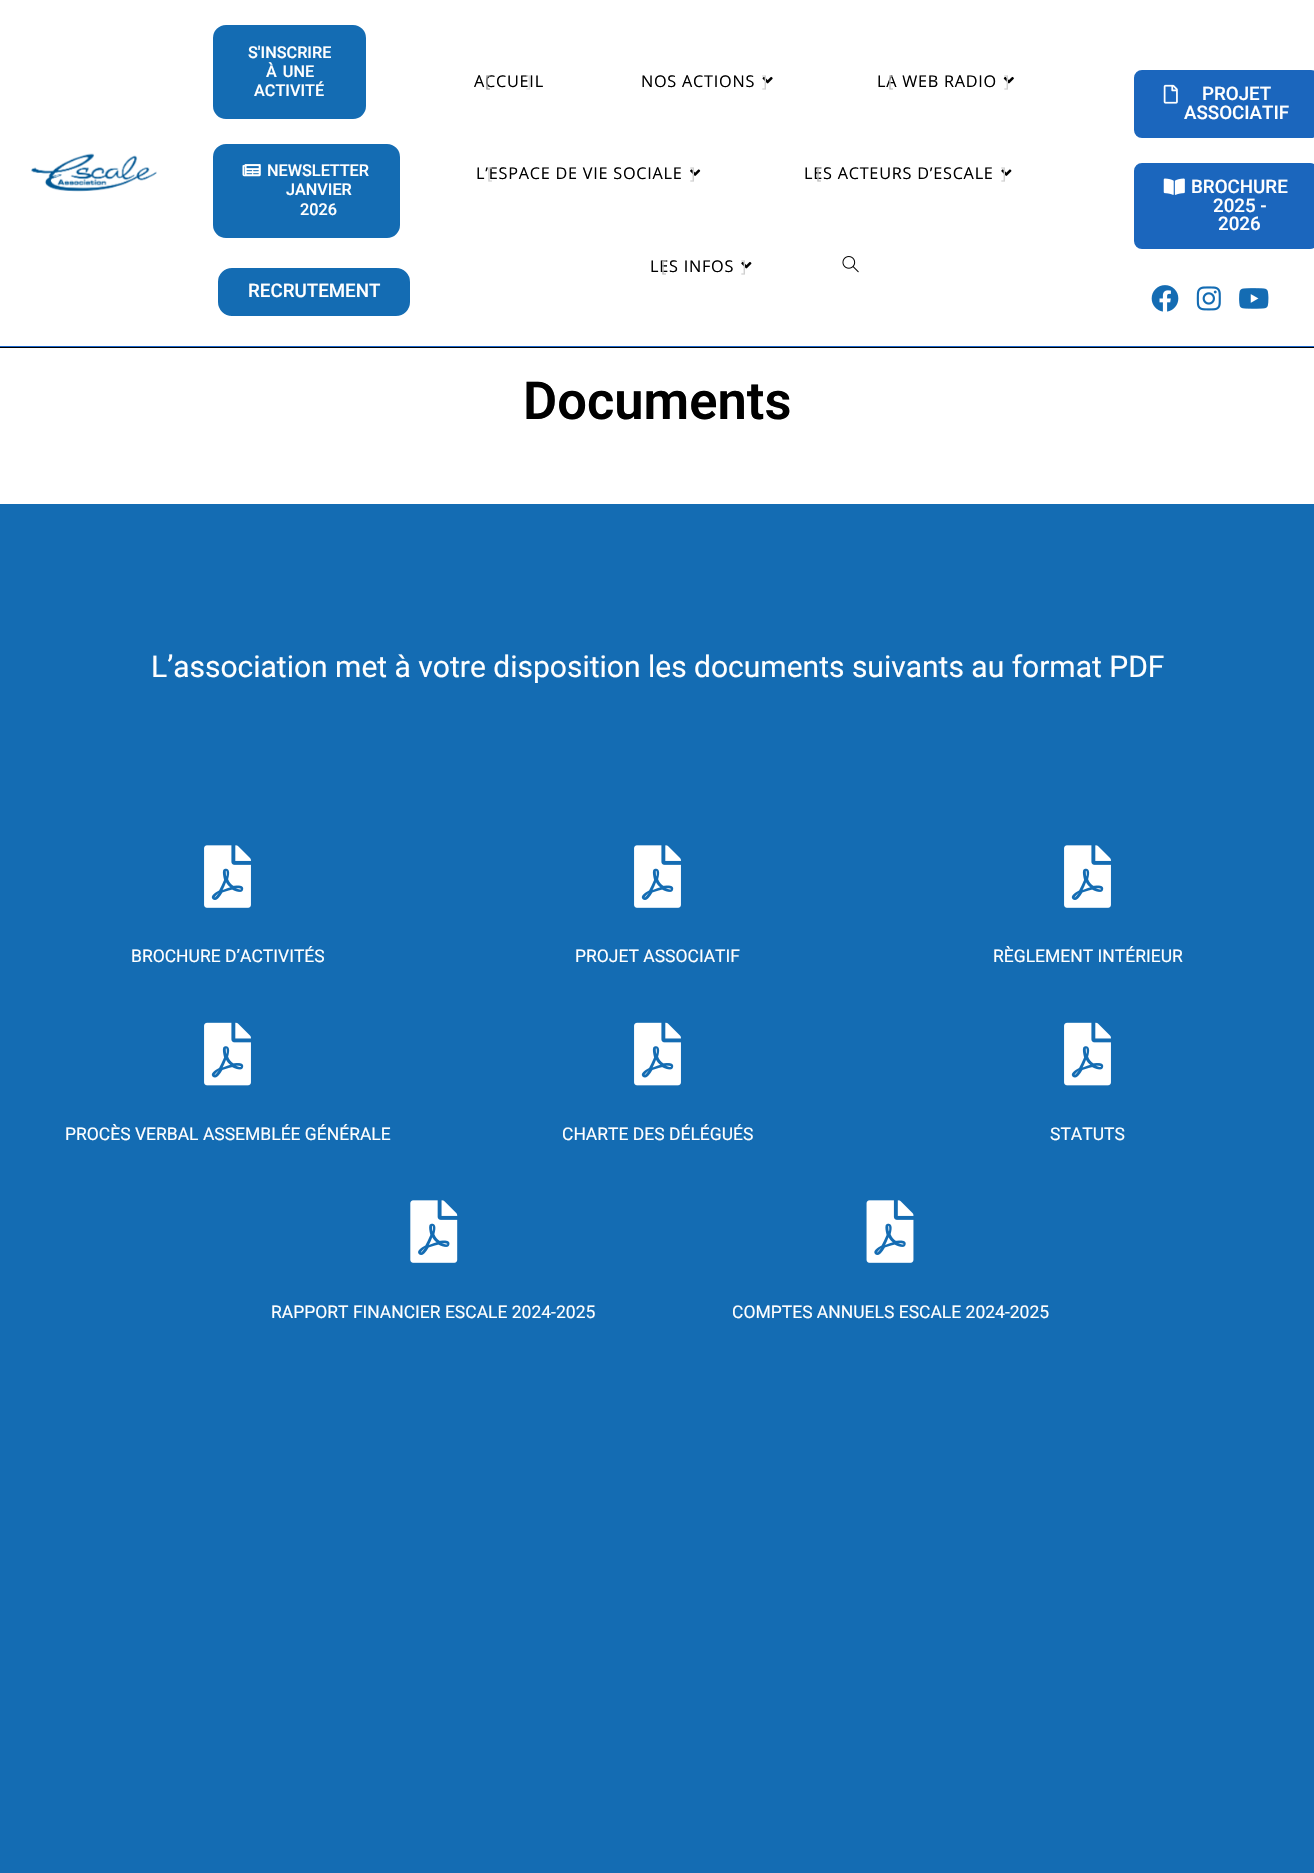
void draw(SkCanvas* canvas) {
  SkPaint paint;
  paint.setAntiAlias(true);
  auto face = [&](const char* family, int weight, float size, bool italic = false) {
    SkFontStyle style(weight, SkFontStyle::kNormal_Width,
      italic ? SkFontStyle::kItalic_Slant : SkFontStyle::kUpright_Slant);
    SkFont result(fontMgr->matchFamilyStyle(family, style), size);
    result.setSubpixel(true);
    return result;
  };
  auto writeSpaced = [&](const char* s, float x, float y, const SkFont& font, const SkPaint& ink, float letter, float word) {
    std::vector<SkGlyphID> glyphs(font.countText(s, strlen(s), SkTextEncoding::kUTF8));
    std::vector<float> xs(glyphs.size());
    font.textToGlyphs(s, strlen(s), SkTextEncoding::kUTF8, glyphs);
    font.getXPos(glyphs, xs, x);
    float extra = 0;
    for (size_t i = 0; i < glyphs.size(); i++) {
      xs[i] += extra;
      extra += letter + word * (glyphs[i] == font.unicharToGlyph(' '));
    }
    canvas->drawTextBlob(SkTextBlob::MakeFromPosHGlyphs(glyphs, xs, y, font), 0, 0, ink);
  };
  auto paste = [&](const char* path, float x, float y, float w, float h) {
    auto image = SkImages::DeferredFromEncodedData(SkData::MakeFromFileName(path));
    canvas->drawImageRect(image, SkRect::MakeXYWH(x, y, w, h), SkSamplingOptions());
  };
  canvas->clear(0xffffffff);
  paint.setColor(0xff000000);
  canvas->drawRect(SkRect::MakeXYWH(0, 347, 1314, 1), paint);
  paint.setColor(0xff1c67cb);
  canvas->drawRect(SkRect::MakeXYWH(0, 346, 1314, 1), paint);
  paste("img/1.png", 31, 153, 126, 39);
  paint.setColor(0xff146cb3);
  canvas->drawRoundRect(SkRect::MakeXYWH(215.5f, 27.5f, 148, 89), 10.5f, 10.5f, paint);
  paint.setStroke(true);
  paint.setStrokeWidth(5);
  canvas->drawRoundRect(SkRect::MakeXYWH(215.5f, 27.5f, 148, 89), 10.5f, 10.5f, paint);
  paint.setStroke(false);
  canvas->drawRoundRect(SkRect::MakeXYWH(215.5f, 146.5f, 182, 89), 10.5f, 10.5f, paint);
  paint.setStroke(true);
  canvas->drawRoundRect(SkRect::MakeXYWH(215.5f, 146.5f, 182, 89), 10.5f, 10.5f, paint);
  paste("img/2.png", 242, 164, 19, 13);
  paint.setStroke(false);
  canvas->drawRoundRect(SkRect::MakeXYWH(215.5f, 265.5f, 197, 53), 16.5f, 16.5f, paint);
  paint.setStroke(true);
  paint.setColor(0xffffffff);
  canvas->drawRoundRect(SkRect::MakeXYWH(215.5f, 265.5f, 197, 53), 16.5f, 16.5f, paint);
  paste("img/3.png", 762, 76, 11, 8);
  paste("img/4.png", 1003, 76, 11, 8);
  paste("img/5.png", 690, 169, 11, 7);
  paste("img/6.png", 1001, 169, 11, 7);
  paste("img/7.png", 741, 261, 11, 8);
  paste("img/8.png", 842, 256, 17, 17);
  paint.setStroke(false);
  paint.setColor(0xff1b66bd);
  canvas->drawRoundRect(SkRect::MakeXYWH(1131.5f, 67.5f, 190, 73), 10.5f, 10.5f, paint);
  paint.setStroke(true);
  paint.setColor(0xffffffff);
  canvas->drawRoundRect(SkRect::MakeXYWH(1131.5f, 67.5f, 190, 73), 10.5f, 10.5f, paint);
  paste("img/9.png", 1163, 84, 15, 20);
  paint.setStroke(false);
  paint.setColor(0xff1b66bd);
  canvas->drawRoundRect(SkRect::MakeXYWH(1131.5f, 160.5f, 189, 91), 10.5f, 10.5f, paint);
  paint.setStroke(true);
  paint.setColor(0xffffffff);
  canvas->drawRoundRect(SkRect::MakeXYWH(1131.5f, 160.5f, 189, 91), 10.5f, 10.5f, paint);
  paste("img/10.png", 1163, 178, 22, 17);
  paste("img/11.png", 1151, 285, 28, 27);
  paste("img/12.png", 1196, 286, 25, 25);
  paste("img/13.png", 1239, 288, 30, 21);
  paint.setStroke(false);
  paint.setColor(0xff146cb3);
  canvas->drawRect(SkRect::MakeXYWH(0, 504, 1314, 1369), paint);
  paste("img/14.png", 204, 845, 47, 63);
  paste("img/14.png", 634, 845, 47, 63);
  paste("img/14.png", 1064, 845, 47, 63);
  paste("img/15.png", 204, 1022, 47, 64);
  paste("img/15.png", 634, 1022, 47, 64);
  paste("img/15.png", 1064, 1022, 47, 64);
  paste("img/16.png", 410, 1200, 48, 63);
  paste("img/17.png", 866, 1200, 48, 63);
  auto f0 = face("Roboto", 500, 16.25f);
  paint.setColor(0xffffffff);
  canvas->drawString("S'INSCRIRE", 248, 58, f0, paint);
  writeSpaced("À UNE", 266, 77, f0, paint, 0, 2);
  {
    const struct { const char* s; float x, y; } items[] = {
      {"ACTIVITÉ", 254, 96},
      {"NEWSLETTER", 267, 176},
      {"JANVIER", 286, 195},
      {"2026", 300, 215},
    };
    for (auto [s, x, y] : items) {
      canvas->drawString(s, x, y, f0, paint);
    }
  }
  auto f1 = face("Roboto", 500, 18.75f);
  canvas->drawString("RECRUTEMENT", 248, 297, f1, paint);
  auto f2 = face("Open Sans", 400, 16.25f);
  paint.setColor(0xff000000);
  writeSpaced("ACCUEIL", 474, 87, f2, paint, 0.75f, 0);
  paint.setColor(0xff9d9d9d);
  writeSpaced("[", 485, 87, f2, paint, 0.75f, 0);
  paint.setColor(0xffe0e0e0);
  writeSpaced("]", 526, 87, f2, paint, 0.75f, 0);
  paint.setColor(0xff000000);
  writeSpaced("NOS ACTIONS", 641, 87, f2, paint, 0.75f, 0);
  paint.setColor(0xffd0d0d0);
  writeSpaced("]", 762, 87, f2, paint, 0.75f, 0);
  paint.setColor(0xff000000);
  writeSpaced("LA WEB RADIO", 877, 87, f2, paint, 0.75f, 0);
  paint.setColor(0xffbdbdbd);
  writeSpaced("[", 888, 87, f2, paint, 0.75f, 0);
  paint.setColor(0xffd0d0d0);
  writeSpaced("]", 1004, 87, f2, paint, 0.75f, 0);
  paint.setColor(0xff000000);
  writeSpaced("L’ESPACE DE VIE SOCIALE", 476, 179, f2, paint, 0.75f, 0);
  paint.setColor(0xffd0d0d0);
  writeSpaced("[", 487, 179, f2, paint, 0.75f, 0);
  writeSpaced("]", 690, 179, f2, paint, 0.75f, 0);
  paint.setColor(0xff000000);
  writeSpaced("LES ACTEURS D’ESCALE", 804, 179, f2, paint, 0.75f, 0);
  paint.setColor(0xffbdbdbd);
  writeSpaced("[", 816, 179, f2, paint, 0.75f, 0);
  paint.setColor(0xffd0d0d0);
  writeSpaced("]", 1001, 179, f2, paint, 0.75f, 0);
  paint.setColor(0xff000000);
  writeSpaced("LES INFOS", 650, 272, f2, paint, 0.75f, 0);
  paint.setColor(0xffbdbdbd);
  writeSpaced("[", 661, 272, f2, paint, 0.75f, 0);
  paint.setColor(0xffd0d0d0);
  writeSpaced("]", 741, 272, f2, paint, 0.75f, 0);
  paint.setColor(0xffffffff);
  {
    const struct { const char* s; float x, y; } items[] = {
      {"PROJET", 1202, 100},
      {"ASSOCIATIF", 1184, 119},
      {"BROCHURE", 1191, 193},
      {"2025 -", 1213, 212},
      {"2026", 1218, 230},
    };
    for (auto [s, x, y] : items) {
      canvas->drawString(s, x, y, f1, paint);
    }
  }
  auto f3 = face("Roboto", 600, 52.5f);
  paint.setColor(0xff000000);
  canvas->drawString("Documents", 523, 419, f3, paint);
  auto f4 = face("Roboto", 400, 30);
  paint.setColor(0xffffffff);
  canvas->drawString("L’association met à votre disposition les documents suivants au format PDF", 151, 677, f4, paint);
  auto f5 = face("Roboto", 400, 17.5f);
  {
    const struct { const char* s; float x, y; } items[] = {
      {"BROCHURE D’ACTIVITÉS", 131, 962},
      {"PROJET ASSOCIATIF", 575, 962},
      {"RÈGLEMENT INTÉRIEUR", 993, 962},
      {"PROCÈS VERBAL ASSEMBLÉE GÉNÉRALE", 65, 1140},
      {"CHARTE DES DÉLÉGUÉS", 562, 1140},
      {"STATUTS", 1050, 1140},
      {"RAPPORT FINANCIER ESCALE 2024-2025", 271, 1318},
      {"COMPTES ANNUELS ESCALE 2024-2025", 732, 1318},
    };
    for (auto [s, x, y] : items) {
      canvas->drawString(s, x, y, f5, paint);
    }
  }
}
